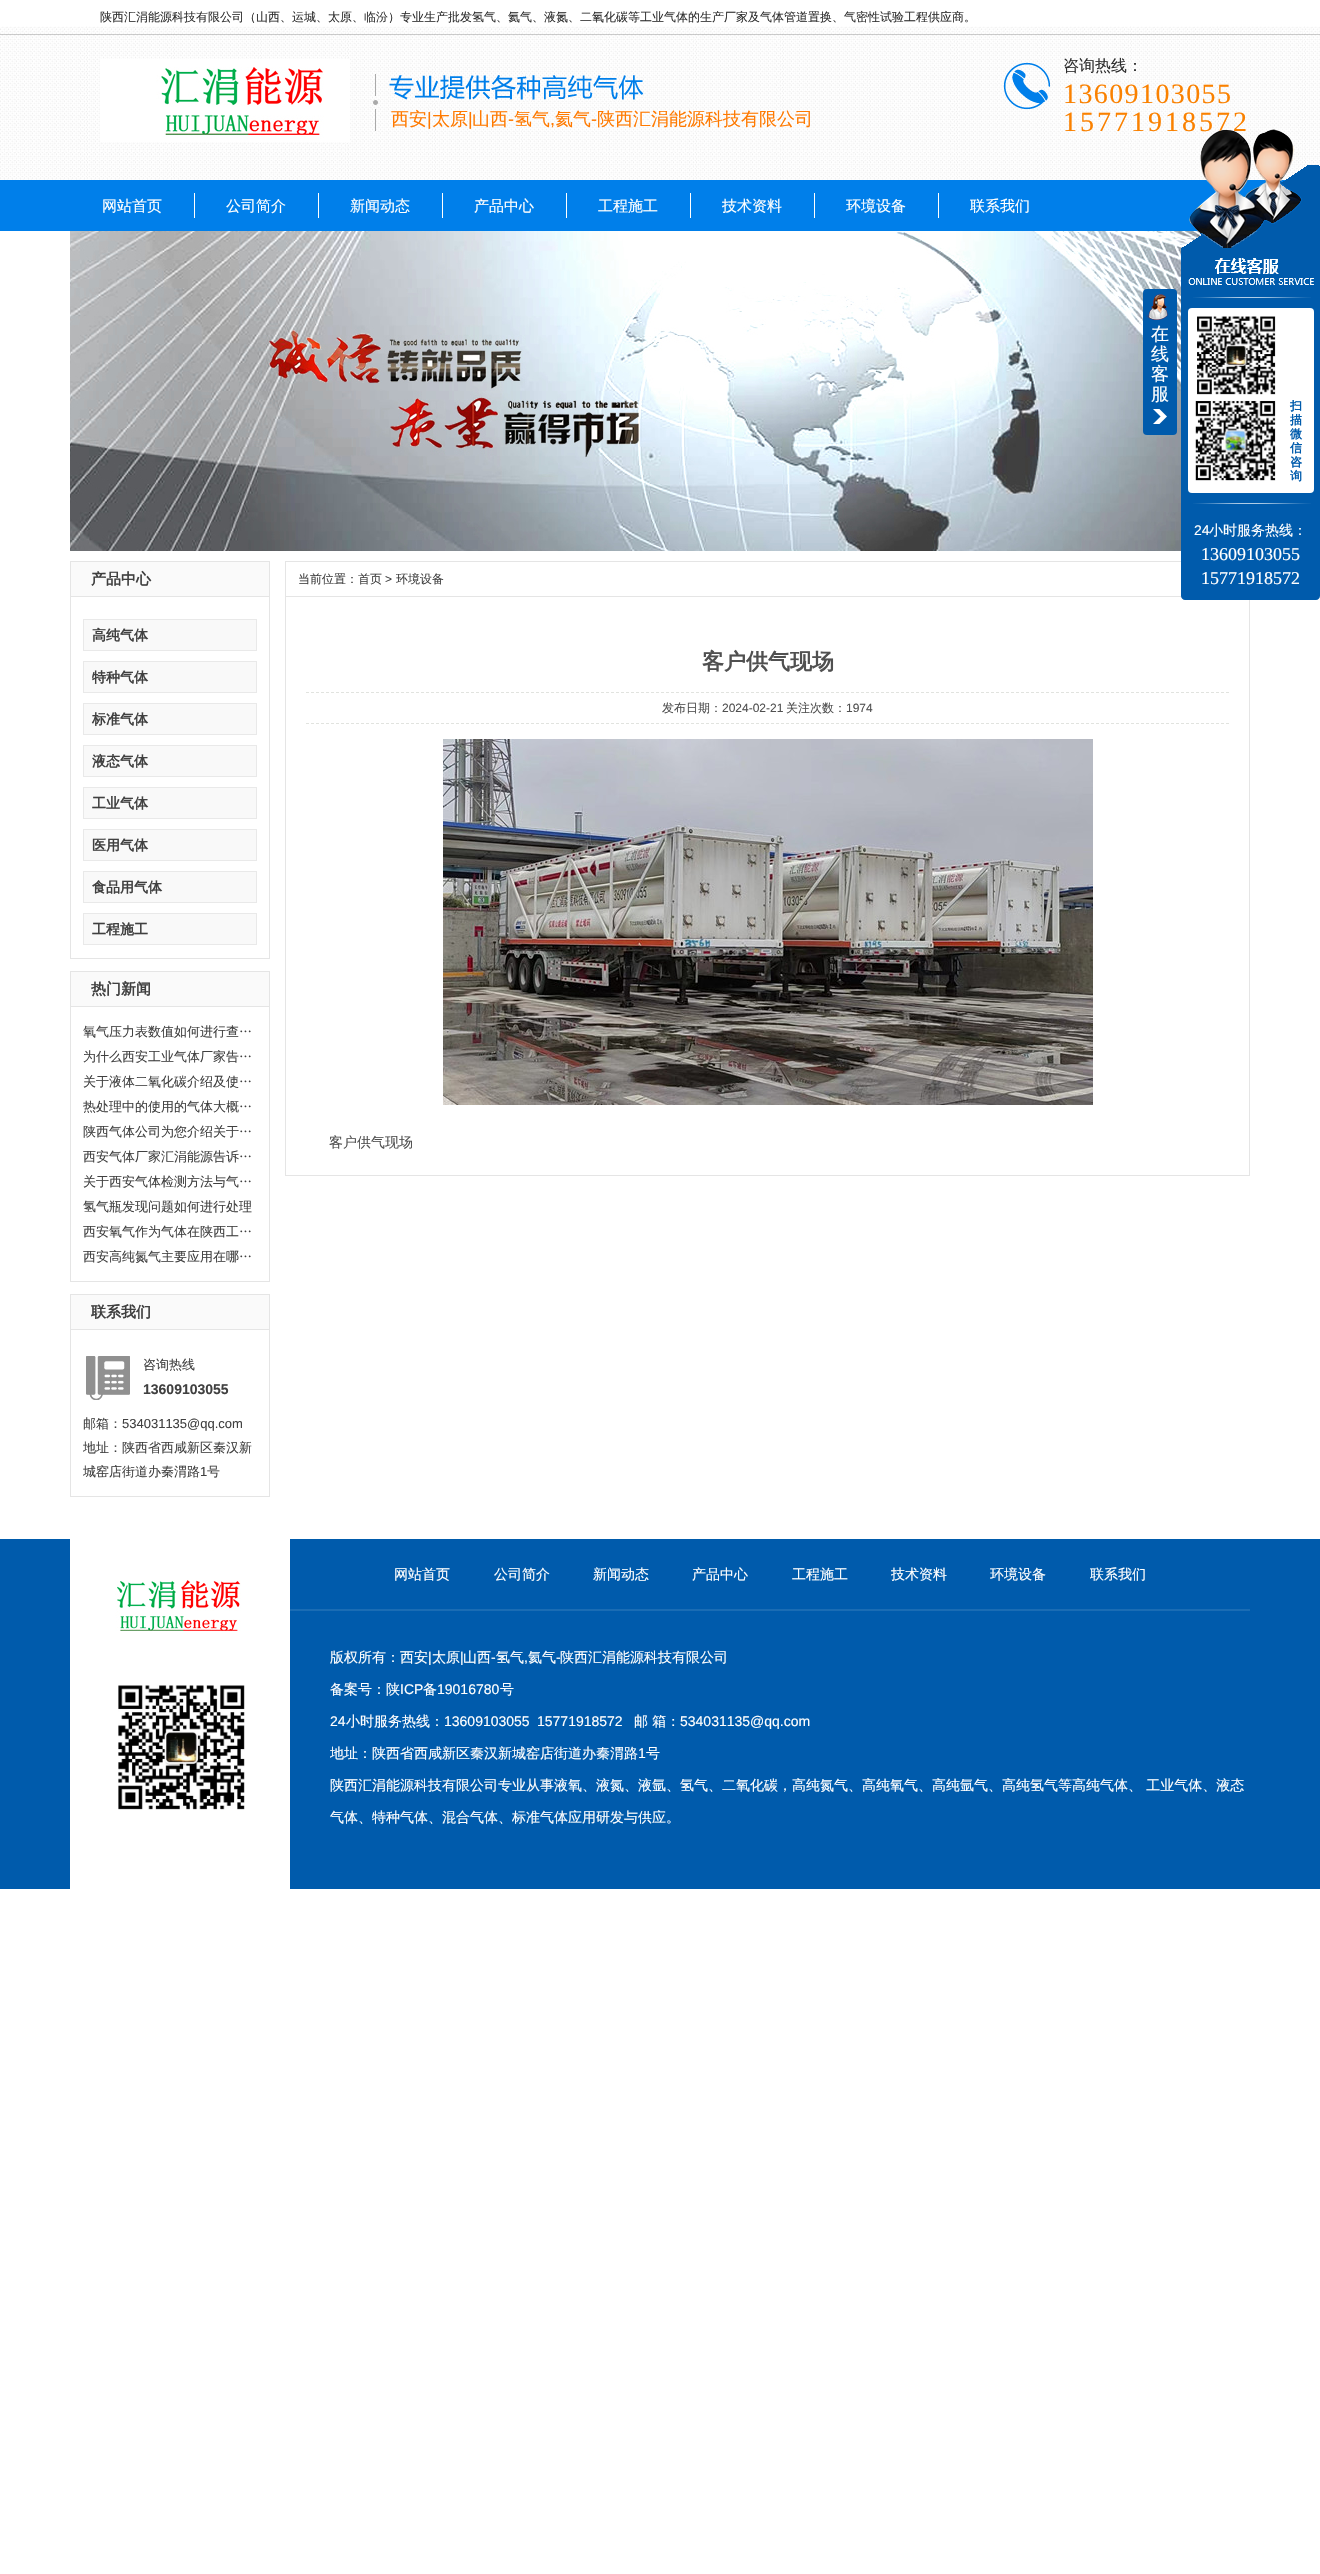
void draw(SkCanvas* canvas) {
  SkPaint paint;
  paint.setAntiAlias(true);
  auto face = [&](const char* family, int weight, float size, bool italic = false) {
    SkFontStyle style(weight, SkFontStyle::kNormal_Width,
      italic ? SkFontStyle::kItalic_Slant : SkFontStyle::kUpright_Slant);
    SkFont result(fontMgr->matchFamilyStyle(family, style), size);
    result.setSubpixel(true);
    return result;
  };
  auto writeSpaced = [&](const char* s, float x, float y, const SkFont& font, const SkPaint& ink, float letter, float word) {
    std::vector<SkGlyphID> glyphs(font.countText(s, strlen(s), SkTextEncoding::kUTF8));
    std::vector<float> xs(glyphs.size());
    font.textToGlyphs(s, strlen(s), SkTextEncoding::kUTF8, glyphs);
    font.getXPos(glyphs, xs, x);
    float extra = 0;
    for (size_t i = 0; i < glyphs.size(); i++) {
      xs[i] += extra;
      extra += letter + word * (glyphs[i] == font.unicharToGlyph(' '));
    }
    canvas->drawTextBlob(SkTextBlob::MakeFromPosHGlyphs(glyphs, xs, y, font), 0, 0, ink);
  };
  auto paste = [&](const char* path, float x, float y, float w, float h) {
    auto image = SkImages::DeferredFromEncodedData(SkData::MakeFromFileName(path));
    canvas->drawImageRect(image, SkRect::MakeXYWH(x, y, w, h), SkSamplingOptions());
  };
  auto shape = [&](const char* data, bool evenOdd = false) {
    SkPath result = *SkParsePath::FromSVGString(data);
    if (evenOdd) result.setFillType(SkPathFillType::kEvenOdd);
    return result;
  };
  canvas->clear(0xffffffff);
  paste("img/1.png", 0, 26, 1320, 154);
  paste("img/2.png", 100, 59, 250, 83);
  paste("img/3.png", 373, 74, 5, 57);
  paste("img/4.png", 389, 74, 262, 28);
  paste("img/5.png", 1003, 62, 48, 48);
  {
    const struct { float x, y, w, h; SkColor color; } items[] = {
      {0, 180, 1302, 51, 0xff007fea},
      {194, 193, 1, 25, 0xffffffff},
      {318, 193, 1, 25, 0xffffffff},
      {442, 193, 1, 25, 0xffffffff},
      {566, 193, 1, 25, 0xffffffff},
      {690, 193, 1, 25, 0xffffffff},
      {814, 193, 1, 25, 0xffffffff},
      {938, 193, 1, 25, 0xffffffff},
    };
    for (auto [x, y, w, h, color] : items) {
      paint.setColor(color);
      canvas->drawRect(SkRect::MakeXYWH(x, y, w, h), paint);
    }
  }
  paste("img/6.png", 70, 231, 1180, 320);
  paint.setColor(0xff005bac);
  canvas->drawRoundRect(SkRect::MakeXYWH(1143, 289, 34, 146), 4, 4, paint);
  paste("img/7.png", 1153, 409, 14, 15);
  paste("img/8.png", 1146, 294, 22, 26);
  paint.setStroke(true);
  paint.setStrokeWidth(1);
  paint.setColor(0xffe5e5e5);
  canvas->drawRect(SkRect::MakeXYWH(285.5f, 596.5f, 964, 579), paint);
  paint.setStroke(false);
  paint.setColor(0xff005bac);
  canvas->drawPath(shape("M1181 248H1320V596C1320 598 1318 600 1316 600H1185C1183 600 1181 598 1181 596Z"), paint);
  paste("img/10.png", 1188, 258, 126, 27);
  paste("img/11.png", 1193, 297, 118, 1);
  paint.setColor(0xffffffff);
  canvas->drawRoundRect(SkRect::MakeXYWH(1188, 308, 126, 185), 4, 4, paint);
  paste("img/12.png", 1197, 316, 79, 79);
  paste("img/13.png", 1195, 400, 81, 81);
  paste("img/11.png", 1193, 503, 118, 1);
  paint.setStroke(true);
  paint.setColor(0xffe5e5e5);
  canvas->drawRect(SkRect::MakeXYWH(70.5f, 561.5f, 199, 397), paint);
  paint.setStroke(false);
  paint.setColor(0xfffafafa);
  canvas->drawRect(SkRect::MakeXYWH(71, 562, 198, 34), paint);
  paint.setColor(0xffe5e5e5);
  canvas->drawRect(SkRect::MakeXYWH(71, 596, 198, 1), paint);
  paint.setColor(0xfff9f9f9);
  canvas->drawRect(SkRect::MakeXYWH(83.5f, 619.5f, 173, 31), paint);
  paint.setStroke(true);
  paint.setColor(0xffe9e9e9);
  canvas->drawRect(SkRect::MakeXYWH(83.5f, 619.5f, 173, 31), paint);
  paint.setStroke(false);
  paint.setColor(0xfff9f9f9);
  canvas->drawRect(SkRect::MakeXYWH(83.5f, 661.5f, 173, 31), paint);
  paint.setStroke(true);
  paint.setColor(0xffe9e9e9);
  canvas->drawRect(SkRect::MakeXYWH(83.5f, 661.5f, 173, 31), paint);
  paint.setStroke(false);
  paint.setColor(0xfff9f9f9);
  canvas->drawRect(SkRect::MakeXYWH(83.5f, 703.5f, 173, 31), paint);
  paint.setStroke(true);
  paint.setColor(0xffe9e9e9);
  canvas->drawRect(SkRect::MakeXYWH(83.5f, 703.5f, 173, 31), paint);
  paint.setStroke(false);
  paint.setColor(0xfff9f9f9);
  canvas->drawRect(SkRect::MakeXYWH(83.5f, 745.5f, 173, 31), paint);
  paint.setStroke(true);
  paint.setColor(0xffe9e9e9);
  canvas->drawRect(SkRect::MakeXYWH(83.5f, 745.5f, 173, 31), paint);
  paint.setStroke(false);
  paint.setColor(0xfff9f9f9);
  canvas->drawRect(SkRect::MakeXYWH(83.5f, 787.5f, 173, 31), paint);
  paint.setStroke(true);
  paint.setColor(0xffe9e9e9);
  canvas->drawRect(SkRect::MakeXYWH(83.5f, 787.5f, 173, 31), paint);
  paint.setStroke(false);
  paint.setColor(0xfff9f9f9);
  canvas->drawRect(SkRect::MakeXYWH(83.5f, 829.5f, 173, 31), paint);
  paint.setStroke(true);
  paint.setColor(0xffe9e9e9);
  canvas->drawRect(SkRect::MakeXYWH(83.5f, 829.5f, 173, 31), paint);
  paint.setStroke(false);
  paint.setColor(0xfff9f9f9);
  canvas->drawRect(SkRect::MakeXYWH(83.5f, 871.5f, 173, 31), paint);
  paint.setStroke(true);
  paint.setColor(0xffe9e9e9);
  canvas->drawRect(SkRect::MakeXYWH(83.5f, 871.5f, 173, 31), paint);
  paint.setStroke(false);
  paint.setColor(0xfff9f9f9);
  canvas->drawRect(SkRect::MakeXYWH(83.5f, 913.5f, 173, 31), paint);
  paint.setStroke(true);
  paint.setColor(0xffe9e9e9);
  canvas->drawRect(SkRect::MakeXYWH(83.5f, 913.5f, 173, 31), paint);
  paint.setColor(0xffe5e5e5);
  canvas->drawRect(SkRect::MakeXYWH(70.5f, 971.5f, 199, 310), paint);
  paint.setStroke(false);
  paint.setColor(0xfffafafa);
  canvas->drawRect(SkRect::MakeXYWH(71, 972, 198, 34), paint);
  paint.setColor(0xffe5e5e5);
  canvas->drawRect(SkRect::MakeXYWH(71, 1006, 198, 1), paint);
  paint.setStroke(true);
  canvas->drawRect(SkRect::MakeXYWH(70.5f, 1294.5f, 199, 202), paint);
  paint.setStroke(false);
  paint.setColor(0xfffafafa);
  canvas->drawRect(SkRect::MakeXYWH(71, 1295, 198, 34), paint);
  paint.setColor(0xffe5e5e5);
  canvas->drawRect(SkRect::MakeXYWH(71, 1329, 198, 1), paint);
  paste("img/14.png", 86, 1356, 44, 44);
  canvas->drawRect(SkRect::MakeXYWH(285, 561, 896, 1), paint);
  canvas->drawRect(SkRect::MakeXYWH(285, 561, 1, 35), paint);
  paint.setStroke(true);
  paint.setColor(0xffe1e3df);
  paint.setPathEffect(SkDashPathEffect::Make({{3, 2}}, 0));
  canvas->drawPath(shape("M306 692.5H1229"), paint);
  paint.setPathEffect(nullptr);
  paint.setPathEffect(SkDashPathEffect::Make({{3, 2}}, 0));
  canvas->drawPath(shape("M306 723.5H1229"), paint);
  paint.setPathEffect(nullptr);
  paste("img/15.png", 443, 739, 650, 366);
  paint.setStroke(false);
  paint.setColor(0xff005bac);
  canvas->drawRect(SkRect::MakeXYWH(0, 1539, 1320, 350), paint);
  paint.setColor(0xffffffff);
  canvas->drawRect(SkRect::MakeXYWH(70, 1539, 220, 350), paint);
  paste("img/16.png", 115, 1580, 126, 51);
  paste("img/17.png", 118, 1685, 127, 125);
  paint.setColor(0xff1a6cb4);
  canvas->drawRect(SkRect::MakeXYWH(290, 1609, 960, 2), paint);
  auto f0 = face("WenQuanYi Zen Hei", 500, 12);
  paint.setColor(0xff2f2f2f);
  canvas->drawString("陕西汇涓能源科技有限公司（山西、运城、太原、临汾）专业生产批发氢气、氦气、液氮、二氧化碳等工业气体的生产厂家及气体管道置换、气密性试验工程供应商。", 100, 21, f0, paint);
  auto f1 = face("WenQuanYi Zen Hei", 500, 18);
  paint.setColor(0xffff7a01);
  canvas->drawString("西安", 391, 125, f1, paint);
  auto f2 = face("Liberation Sans", 400, 18);
  canvas->drawString("|", 427, 125, f2, paint);
  canvas->drawString("太原", 432, 125, f1, paint);
  canvas->drawString("|", 468, 125, f2, paint);
  canvas->drawString("山西", 472, 125, f1, paint);
  canvas->drawString("-", 508, 125, f2, paint);
  canvas->drawString("氢气", 514, 125, f1, paint);
  canvas->drawString("氦气", 555, 125, f1, paint);
  canvas->drawString("-", 591, 125, f2, paint);
  canvas->drawString("陕西汇涓能源科技有限公司", 597, 125, f1, paint);
  canvas->drawString(",", 550, 125, f2, paint);
  auto f3 = face("WenQuanYi Zen Hei", 500, 16);
  paint.setColor(0xff2f2f2f);
  canvas->drawString("咨询热线：", 1063, 71, f3, paint);
  auto f4 = face("Liberation Serif", 400, 28);
  paint.setColor(0xfffa8100);
  writeSpaced("13609103055", 1063, 103, f4, paint, 1.4f, 0);
  writeSpaced("15771918572", 1063, 131, f4, paint, 3, 0);
  auto f5 = face("WenQuanYi Zen Hei", 500, 15);
  paint.setColor(0xffffffff);
  {
    const struct { const char* s; float x, y; } items[] = {
      {"网站首页", 102, 211},
      {"公司简介", 226, 211},
      {"新闻动态", 350, 211},
      {"产品中心", 474, 211},
      {"工程施工", 598, 211},
      {"技术资料", 722, 211},
      {"环境设备", 846, 211},
      {"联系我们", 970, 211},
    };
    for (auto [s, x, y] : items) {
      canvas->drawString(s, x, y, f5, paint);
    }
  }
  {
    const struct { const char* s; float x, y; } items[] = {
      {"在", 1151, 340},
      {"线", 1151, 360},
      {"客", 1151, 380},
      {"服", 1151, 400},
    };
    for (auto [s, x, y] : items) {
      canvas->drawString(s, x, y, f1, paint);
    }
  }
  paste("img/9.png", 1182, 129, 138, 119);
  auto f6 = face("WenQuanYi Zen Hei", 700, 12);
  paint.setColor(0xff005bac);
  {
    const struct { const char* s; float x, y; } items[] = {
      {"扫", 1290, 410},
      {"描", 1290, 424},
      {"微", 1290, 438},
      {"信", 1290, 452},
      {"咨", 1290, 466},
      {"询", 1290, 480},
    };
    for (auto [s, x, y] : items) {
      canvas->drawString(s, x, y, f6, paint);
    }
  }
  auto f7 = face("Liberation Sans", 400, 14);
  paint.setColor(0xffffffff);
  canvas->drawString("24", 1194, 535, f7, paint);
  auto f8 = face("WenQuanYi Zen Hei", 500, 14);
  canvas->drawString("小时服务热线：", 1209, 535, f8, paint);
  auto f9 = face("Liberation Serif", 400, 18);
  canvas->drawString("13609103055", 1201, 560, f9, paint);
  canvas->drawString("15771918572", 1201, 584, f9, paint);
  auto f10 = face("WenQuanYi Zen Hei", 700, 15);
  paint.setColor(0xff404040);
  canvas->drawString("产品中心", 91, 584, f10, paint);
  auto f11 = face("WenQuanYi Zen Hei", 700, 14);
  {
    const struct { const char* s; float x, y; } items[] = {
      {"高纯气体", 92, 640},
      {"特种气体", 92, 682},
      {"标准气体", 92, 724},
      {"液态气体", 92, 766},
      {"工业气体", 92, 808},
      {"医用气体", 92, 850},
      {"食品用气体", 92, 892},
      {"工程施工", 92, 934},
    };
    for (auto [s, x, y] : items) {
      canvas->drawString(s, x, y, f11, paint);
    }
  }
  canvas->drawString("热门新闻", 91, 994, f10, paint);
  auto f12 = face("WenQuanYi Zen Hei", 500, 13);
  {
    const struct { const char* s; float x, y; } items[] = {
      {"氧气压力表数值如何进行查…", 83, 1036},
      {"为什么西安工业气体厂家告…", 83, 1061},
      {"关于液体二氧化碳介绍及使…", 83, 1086},
      {"热处理中的使用的气体大概…", 83, 1111},
      {"陕西气体公司为您介绍关于…", 83, 1136},
      {"西安气体厂家汇涓能源告诉…", 83, 1161},
      {"关于西安气体检测方法与气…", 83, 1186},
      {"氢气瓶发现问题如何进行处理", 83, 1211},
      {"西安氧气作为气体在陕西工…", 83, 1236},
      {"西安高纯氮气主要应用在哪…", 83, 1261},
    };
    for (auto [s, x, y] : items) {
      canvas->drawString(s, x, y, f12, paint);
    }
  }
  canvas->drawString("联系我们", 91, 1317, f10, paint);
  canvas->drawString("咨询热线", 143, 1369, f12, paint);
  auto f13 = face("Liberation Sans", 700, 14);
  canvas->drawString("13609103055", 143, 1394, f13, paint);
  canvas->drawString("邮箱：", 83, 1428, f12, paint);
  auto f14 = face("Liberation Sans", 400, 13);
  canvas->drawString("534031135@qq.com", 122, 1428, f14, paint);
  canvas->drawString("地址：陕西省西咸新区秦汉新", 83, 1452, f12, paint);
  canvas->drawString("城窑店街道办秦渭路", 83, 1476, f12, paint);
  canvas->drawString("1", 200, 1476, f14, paint);
  canvas->drawString("号", 207, 1476, f12, paint);
  canvas->drawString("当前位置：首页", 298, 583, f0, paint);
  auto f15 = face("Liberation Sans", 400, 12);
  canvas->drawString(">", 385, 583, f15, paint);
  canvas->drawString("环境设备", 396, 583, f0, paint);
  auto f16 = face("WenQuanYi Zen Hei", 700, 22);
  paint.setColor(0xff505050);
  canvas->drawString("客户供气现场", 702, 669, f16, paint);
  canvas->drawString("发布日期：", 662, 712, f0, paint);
  canvas->drawString("2024-02-21", 722, 712, f15, paint);
  canvas->drawString("关注次数：", 786, 712, f0, paint);
  canvas->drawString("1974", 846, 712, f15, paint);
  canvas->drawString("客户供气现场", 329, 1147, f8, paint);
  paint.setColor(0xffffffff);
  {
    const struct { const char* s; float x, y; } items[] = {
      {"网站首页", 394, 1579},
      {"公司简介", 494, 1579},
      {"新闻动态", 593, 1579},
      {"产品中心", 692, 1579},
      {"工程施工", 792, 1579},
      {"技术资料", 891, 1579},
      {"环境设备", 990, 1579},
      {"联系我们", 1090, 1579},
      {"版权所有：西安", 330, 1662},
    };
    for (auto [s, x, y] : items) {
      canvas->drawString(s, x, y, f8, paint);
    }
  }
  canvas->drawString("|", 428, 1662, f7, paint);
  canvas->drawString("太原", 432, 1662, f8, paint);
  canvas->drawString("|", 460, 1662, f7, paint);
  canvas->drawString("山西", 463, 1662, f8, paint);
  canvas->drawString("-", 491, 1662, f7, paint);
  canvas->drawString("氢气", 496, 1662, f8, paint);
  canvas->drawString("氦气", 528, 1662, f8, paint);
  canvas->drawString("-", 556, 1662, f7, paint);
  canvas->drawString("陕西汇涓能源科技有限公司", 560, 1662, f8, paint);
  canvas->drawString(",", 524, 1662, f7, paint);
  canvas->drawString("备案号：陕", 330, 1694, f8, paint);
  canvas->drawString("ICP", 400, 1694, f7, paint);
  canvas->drawString("备", 423, 1694, f8, paint);
  canvas->drawString("19016780", 437, 1694, f7, paint);
  canvas->drawString("号", 500, 1694, f8, paint);
  canvas->drawString("24", 330, 1726, f7, paint);
  canvas->drawString("小时服务热线：", 346, 1726, f8, paint);
  canvas->drawString("13609103055", 444, 1726, f7, paint);
  canvas->drawString("15771918572", 537, 1726, f7, paint);
  canvas->drawString("邮 箱：", 634, 1726, f8, paint);
  canvas->drawString("534031135@qq.com", 680, 1726, f7, paint);
  canvas->drawString("地址：陕西省西咸新区秦汉新城窑店街道办秦渭路", 330, 1758, f8, paint);
  canvas->drawString("1", 638, 1758, f7, paint);
  {
    const struct { const char* s; float x, y; } items[] = {
      {"号", 646, 1758},
      {"陕西汇涓能源科技有限公司专业从事液氧、液氮、液氩、氢气、二氧化碳，高纯氮气、高纯氧气、高纯氩气、高纯氢气等高纯气体、 工业气体、液态", 330, 1790},
      {"气体、特种气体、混合气体、标准气体应用研发与供应。", 330, 1822},
    };
    for (auto [s, x, y] : items) {
      canvas->drawString(s, x, y, f8, paint);
    }
  }
}
